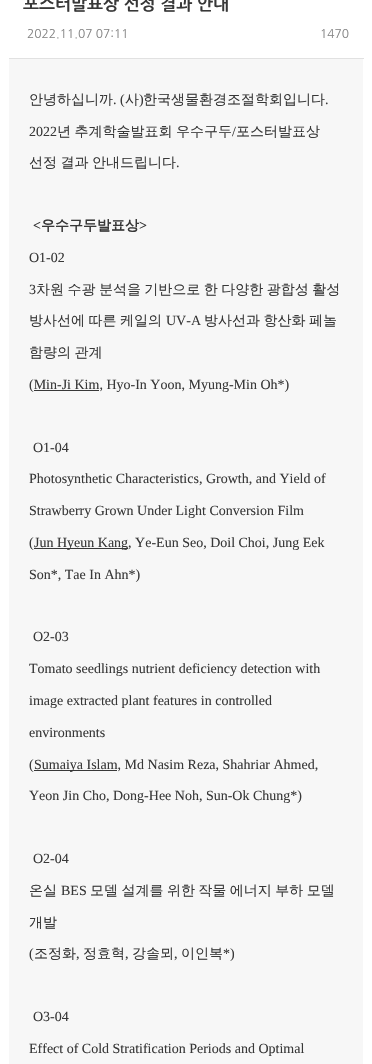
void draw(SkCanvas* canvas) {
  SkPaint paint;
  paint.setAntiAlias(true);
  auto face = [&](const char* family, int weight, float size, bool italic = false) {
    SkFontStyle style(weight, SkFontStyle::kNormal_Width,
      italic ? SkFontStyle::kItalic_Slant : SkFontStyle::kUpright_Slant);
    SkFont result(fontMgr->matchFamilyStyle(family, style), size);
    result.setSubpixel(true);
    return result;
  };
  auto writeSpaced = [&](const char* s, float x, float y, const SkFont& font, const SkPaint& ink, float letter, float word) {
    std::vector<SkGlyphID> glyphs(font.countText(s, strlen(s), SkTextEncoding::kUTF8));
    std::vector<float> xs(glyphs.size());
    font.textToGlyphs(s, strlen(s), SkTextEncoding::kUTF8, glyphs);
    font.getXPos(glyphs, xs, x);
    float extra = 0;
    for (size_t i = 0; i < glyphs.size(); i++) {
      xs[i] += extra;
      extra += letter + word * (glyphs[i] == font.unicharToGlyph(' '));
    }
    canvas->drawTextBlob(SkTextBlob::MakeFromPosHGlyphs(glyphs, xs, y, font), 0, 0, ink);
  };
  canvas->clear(0xffffffff);
  {
    const struct { float x, y, w, h; SkColor color; } items[] = {
      {9, 58, 355, 1, 0xffe1e1e1},
      {9, 59, 354, 1005, 0xfff7f7f7},
      {34, 390, 65, 1, 0xff383838},
      {34, 548, 94, 1, 0xff383838},
      {34, 770, 83, 1, 0xff383838},
    };
    for (auto [x, y, w, h, color] : items) {
      paint.setColor(color);
      canvas->drawRect(SkRect::MakeXYWH(x, y, w, h), paint);
    }
  }
  auto f0 = face("NanumGothic", 700, 17);
  canvas->drawString("포스터발표상 선정 결과 안내", 23, 10, f0, paint);
  auto f1 = face("NanumGothic", 400, 12);
  paint.setColor(0xff848484);
  canvas->drawString("2022.11.07 07:11", 27, 38, f1, paint);
  canvas->drawString("1470", 320, 38, f1, paint);
  auto f2 = face("WenQuanYi Zen Hei", 500, 14);
  paint.setColor(0xff383838);
  canvas->drawString("안녕하십니까", 29, 104, f2, paint);
  auto f3 = face("Liberation Serif", 400, 14);
  canvas->drawString(". (", 113, 104, f3, paint);
  canvas->drawString("사", 125, 104, f2, paint);
  canvas->drawString(")", 139, 104, f3, paint);
  canvas->drawString("한국생물환경조절학회입니다", 143, 104, f2, paint);
  canvas->drawString(".", 325, 104, f3, paint);
  canvas->drawString("2022", 29, 136, f3, paint);
  writeSpaced("년 추계학술발표회 우수구두", 57, 136, f2, paint, 0, -0.75f);
  canvas->drawString("/", 232, 136, f3, paint);
  canvas->drawString("포스터발표상", 236, 136, f2, paint);
  writeSpaced("선정 결과 안내드립니다", 29, 167, f2, paint, 0, -0.75f);
  canvas->drawString(".", 176, 167, f3, paint);
  auto f4 = face("Liberation Serif", 700, 14);
  canvas->drawString("<", 33, 230, f4, paint);
  auto f5 = face("WenQuanYi Zen Hei", 700, 14);
  canvas->drawString("우수구두발표상", 41, 230, f5, paint);
  canvas->drawString(">", 139, 230, f4, paint);
  canvas->drawString("O1-02", 29, 262, f3, paint);
  canvas->drawString("3", 29, 294, f3, paint);
  writeSpaced("차원 수광 분석을 기반으로 한 다양한 광합성 활성", 36, 294, f2, paint, 0, -0.75f);
  writeSpaced("방사선에 따른 케일의", 29, 325, f2, paint, 0, -0.75f);
  canvas->drawString("UV-A", 166, 325, f3, paint);
  writeSpaced("방사선과 항산화 페놀", 204, 325, f2, paint, 0, -0.75f);
  writeSpaced("함량의 관계", 29, 357, f2, paint, 0, -0.75f);
  {
    const struct { const char* s; float x, y; } items[] = {
      {"(Min-Ji Kim, Hyo-In Yoon, Myung-Min Oh*)", 29, 389},
      {"O1-04", 33, 452},
      {"Photosynthetic Characteristics, Growth, and Yield of", 29, 483},
      {"Strawberry Grown Under Light Conversion Film", 29, 515},
      {"(", 29, 547},
      {"Jun Hyeun Kang, Ye-Eun Seo, Doil Choi, Jung Eek", 34, 547},
      {"Son*, Tae In Ahn*)", 29, 579},
      {"O2-03", 33, 641},
      {"Tomato seedlings nutrient deficiency detection with", 29, 673},
      {"image extracted plant features in controlled", 29, 705},
      {"environments", 29, 737},
      {"(", 29, 769},
      {"Sumaiya Islam, Md Nasim Reza, Shahriar Ahmed,", 34, 769},
      {"Yeon Jin Cho, Dong-Hee Noh, Sun-Ok Chung*)", 29, 800},
      {"O2-04", 33, 863},
    };
    for (auto [s, x, y] : items) {
      canvas->drawString(s, x, y, f3, paint);
    }
  }
  canvas->drawString("온실", 29, 895, f2, paint);
  canvas->drawString("BES", 61, 895, f3, paint);
  writeSpaced("모델 설계를 위한 작물 에너지 부하 모델", 90, 895, f2, paint, 0, -0.75f);
  canvas->drawString("개발", 29, 927, f2, paint);
  canvas->drawString("(", 29, 958, f3, paint);
  canvas->drawString("조정화", 34, 958, f2, paint);
  canvas->drawString(",", 76, 958, f3, paint);
  canvas->drawString("정효혁", 83, 958, f2, paint);
  canvas->drawString(",", 125, 958, f3, paint);
  canvas->drawString("강솔뫼", 132, 958, f2, paint);
  canvas->drawString(",", 174, 958, f3, paint);
  canvas->drawString("이인복", 181, 958, f2, paint);
  {
    const struct { const char* s; float x, y; } items[] = {
      {"*)", 223, 958},
      {"O3-04", 33, 1021},
      {"Effect of Cold Stratification Periods and Optimal", 29, 1053},
    };
    for (auto [s, x, y] : items) {
      canvas->drawString(s, x, y, f3, paint);
    }
  }
}
